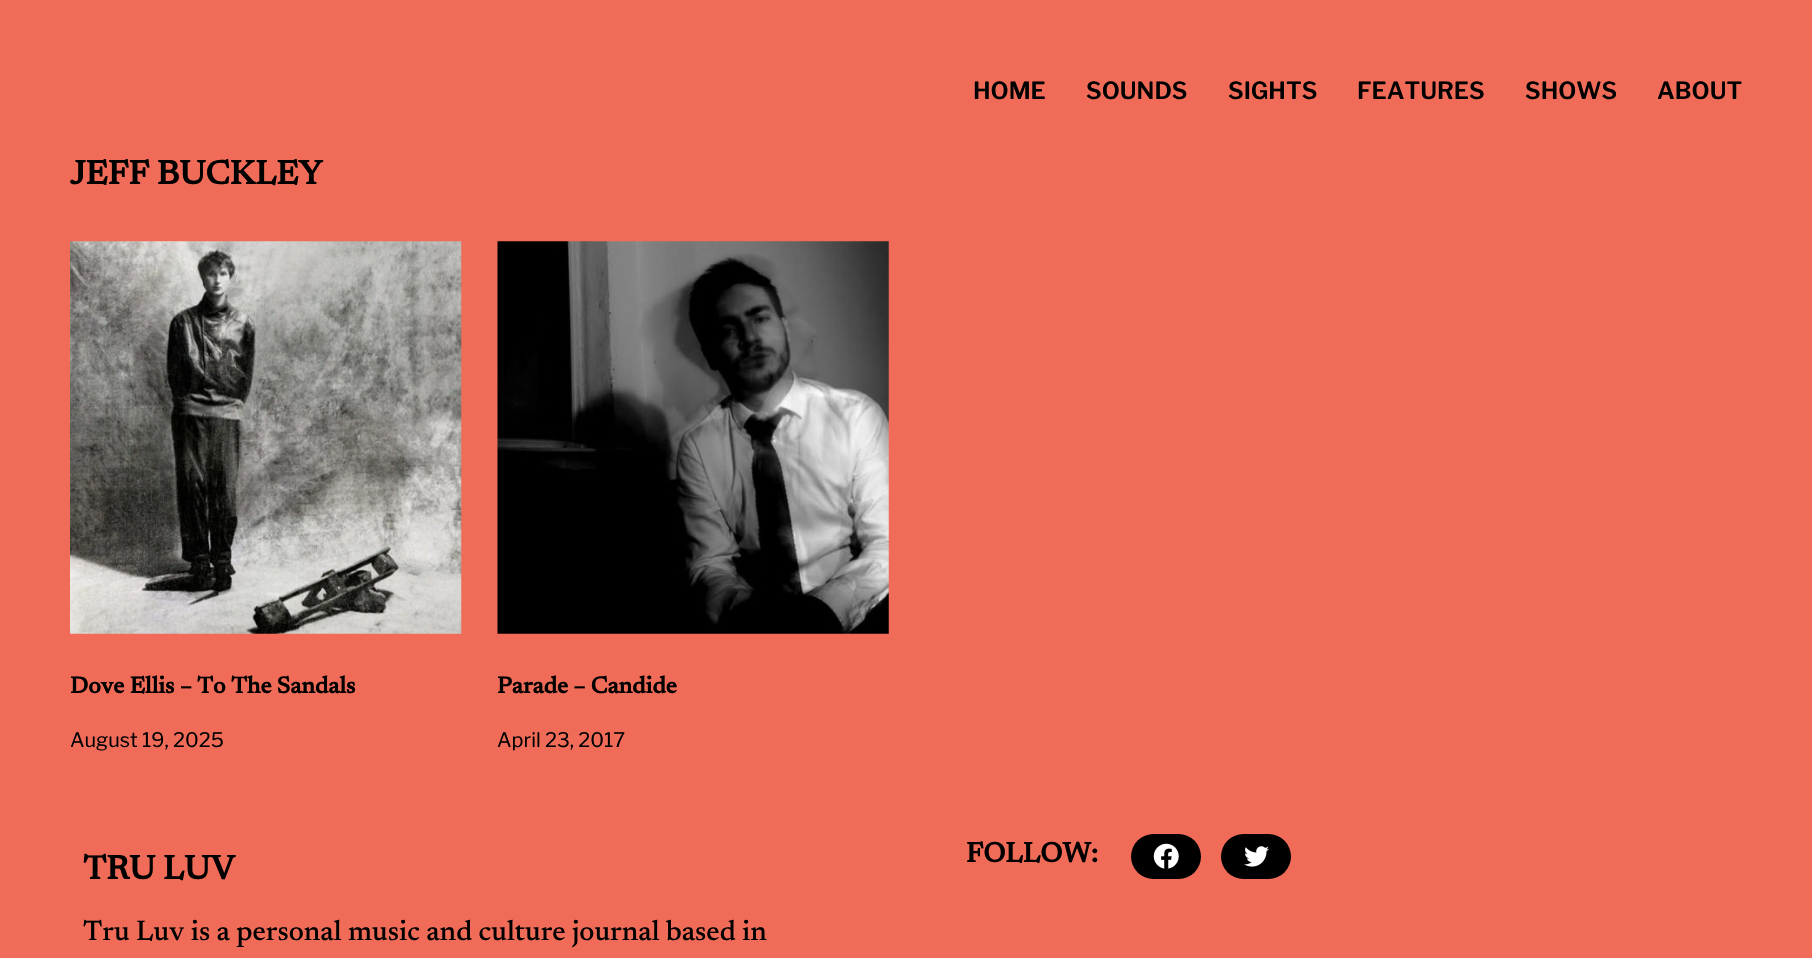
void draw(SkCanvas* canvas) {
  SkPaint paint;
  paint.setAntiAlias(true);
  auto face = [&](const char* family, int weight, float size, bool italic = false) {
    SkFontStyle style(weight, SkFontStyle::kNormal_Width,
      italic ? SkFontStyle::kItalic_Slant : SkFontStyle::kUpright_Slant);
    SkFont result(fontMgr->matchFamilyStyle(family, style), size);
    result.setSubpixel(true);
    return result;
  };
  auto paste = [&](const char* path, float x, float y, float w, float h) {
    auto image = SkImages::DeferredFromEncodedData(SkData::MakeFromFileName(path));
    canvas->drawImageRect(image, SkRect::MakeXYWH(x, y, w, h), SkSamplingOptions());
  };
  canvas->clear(0xfff16c58);
  paste("img/1.png", 70, 241, 392, 393);
  paste("img/2.png", 497, 241, 392, 393);
  paint.setColor(0xff000000);
  canvas->drawRoundRect(SkRect::MakeXYWH(1131, 834, 70, 45), 22.5f, 22.5f, paint);
  paste("img/3.png", 1153, 843, 26, 26);
  canvas->drawRoundRect(SkRect::MakeXYWH(1221, 834, 70, 45), 22.5f, 22.5f, paint);
  paste("img/4.png", 1244, 846, 25, 21);
  auto f0 = face("Libre Franklin", 600, 23.5f);
  {
    const struct { const char* s; float x, y; } items[] = {
      {"HOME", 973, 99},
      {"SOUNDS", 1086, 99},
      {"SIGHTS", 1228, 99},
      {"FEATURES", 1357, 99},
      {"SHOWS", 1525, 99},
      {"ABOUT", 1657, 99},
    };
    for (auto [s, x, y] : items) {
      canvas->drawString(s, x, y, f0, paint);
    }
  }
  auto f1 = face("Newsreader", 700, 34);
  canvas->drawString("JEFF BUCKLEY", 70, 184, f1, paint);
  auto f2 = face("Newsreader", 700, 23.5f);
  canvas->drawString("Dove Ellis – To The Sandals", 70, 693, f2, paint);
  auto f3 = face("Libre Franklin", 400, 20);
  canvas->drawString("August 19, 2025", 70, 747, f3, paint);
  canvas->drawString("Parade – Candide", 497, 693, f2, paint);
  canvas->drawString("April 23, 2017", 497, 747, f3, paint);
  canvas->drawString("TRU LUV", 83, 879, f1, paint);
  auto f4 = face("Newsreader", 500, 28.3f);
  canvas->drawString("Tru Luv is a personal music and culture journal based in", 83, 940, f4, paint);
  auto f5 = face("Newsreader", 700, 28.3f);
  canvas->drawString("FOLLOW:", 966, 862, f5, paint);
}
